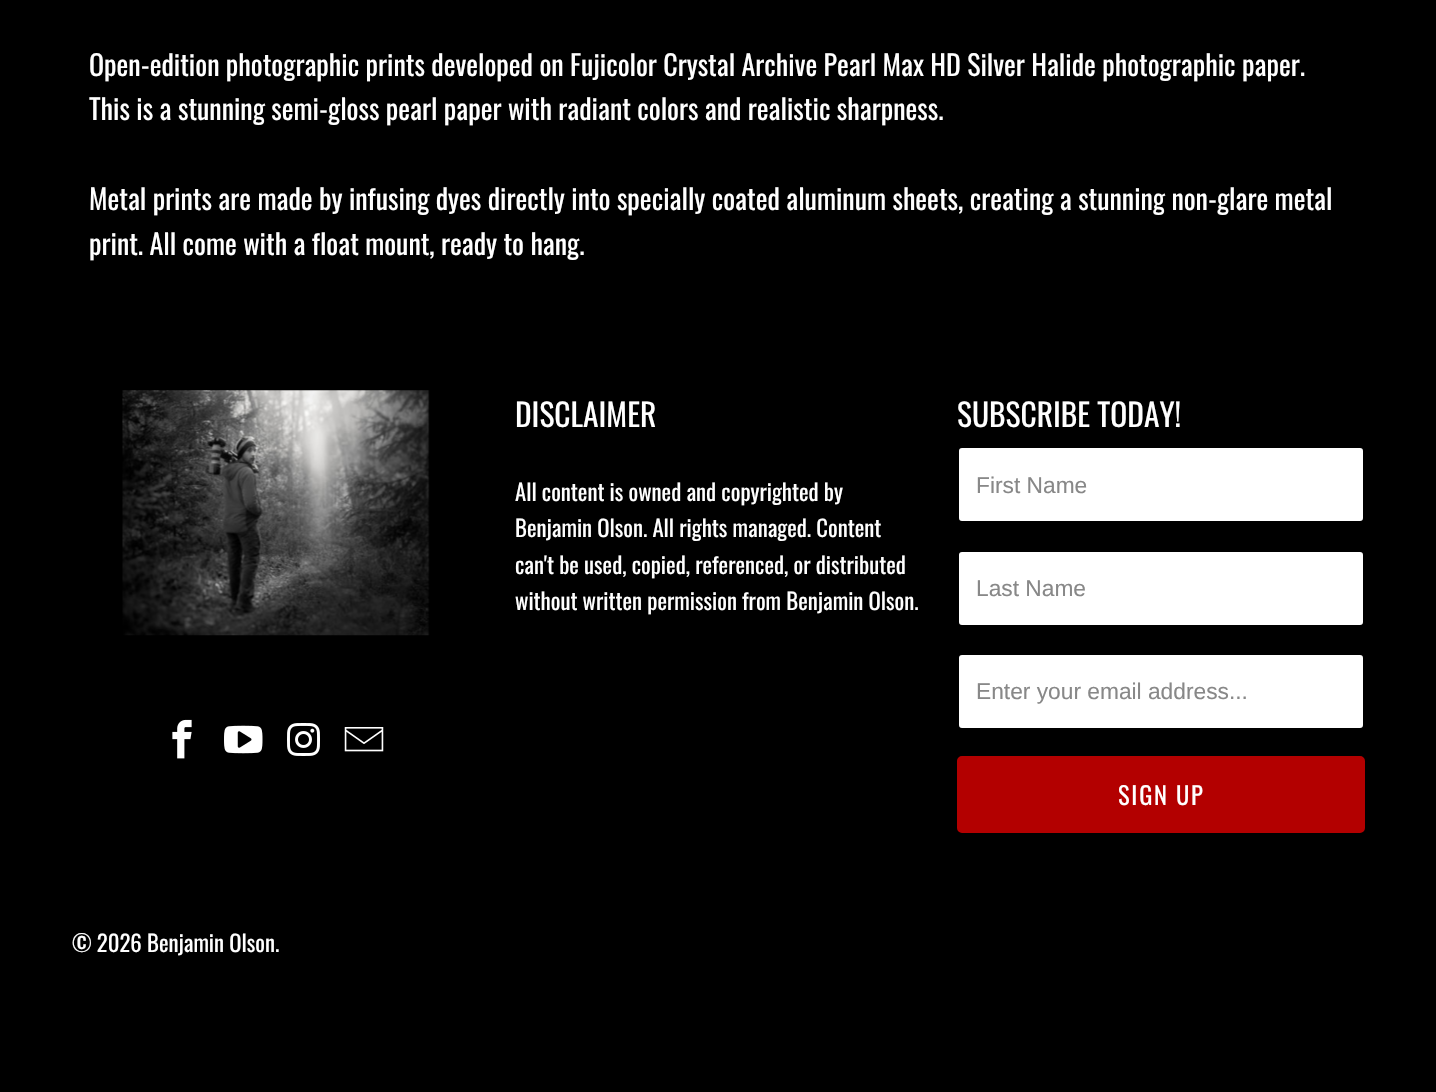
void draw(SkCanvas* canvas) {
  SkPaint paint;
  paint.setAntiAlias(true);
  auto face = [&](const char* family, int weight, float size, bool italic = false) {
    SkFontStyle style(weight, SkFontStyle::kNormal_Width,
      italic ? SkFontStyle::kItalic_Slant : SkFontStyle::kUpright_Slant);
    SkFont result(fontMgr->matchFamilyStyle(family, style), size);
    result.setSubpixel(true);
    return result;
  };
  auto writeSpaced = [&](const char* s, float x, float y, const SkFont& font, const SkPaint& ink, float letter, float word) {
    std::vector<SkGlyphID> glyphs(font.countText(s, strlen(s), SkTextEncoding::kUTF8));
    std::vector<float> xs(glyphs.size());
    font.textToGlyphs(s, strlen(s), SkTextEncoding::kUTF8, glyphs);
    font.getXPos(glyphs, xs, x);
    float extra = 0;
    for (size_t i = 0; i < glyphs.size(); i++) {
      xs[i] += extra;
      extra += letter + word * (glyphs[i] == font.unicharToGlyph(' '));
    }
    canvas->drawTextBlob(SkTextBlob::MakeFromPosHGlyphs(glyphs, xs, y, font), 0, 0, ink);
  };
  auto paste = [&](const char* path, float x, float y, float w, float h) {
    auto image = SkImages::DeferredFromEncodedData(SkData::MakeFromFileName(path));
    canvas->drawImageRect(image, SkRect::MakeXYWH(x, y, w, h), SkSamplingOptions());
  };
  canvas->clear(0xff000000);
  paste("img/1.png", 122, 390, 308, 246);
  paste("img/2.png", 172, 719, 20, 40);
  paste("img/3.png", 224, 725, 39, 29);
  paste("img/4.png", 287, 723, 33, 33);
  paste("img/5.png", 344, 727, 40, 25);
  paint.setColor(0xffffffff);
  canvas->drawRoundRect(SkRect::MakeXYWH(958, 447, 406, 75), 4, 4, paint);
  paint.setStroke(true);
  paint.setStrokeWidth(2);
  paint.setColor(0xff000000);
  canvas->drawRoundRect(SkRect::MakeXYWH(958, 447, 406, 75), 4, 4, paint);
  paint.setStroke(false);
  paint.setColor(0xffffffff);
  canvas->drawRoundRect(SkRect::MakeXYWH(958, 551, 406, 75), 4, 4, paint);
  paint.setStroke(true);
  paint.setColor(0xff000000);
  canvas->drawRoundRect(SkRect::MakeXYWH(958, 551, 406, 75), 4, 4, paint);
  paint.setStroke(false);
  paint.setColor(0xffffffff);
  canvas->drawRoundRect(SkRect::MakeXYWH(958, 654, 406, 75), 4, 4, paint);
  paint.setStroke(true);
  paint.setColor(0xff000000);
  canvas->drawRoundRect(SkRect::MakeXYWH(958, 654, 406, 75), 4, 4, paint);
  paint.setStroke(false);
  paint.setColor(0xffb30000);
  canvas->drawRoundRect(SkRect::MakeXYWH(958, 757, 406, 75), 4, 4, paint);
  paint.setStroke(true);
  canvas->drawRoundRect(SkRect::MakeXYWH(958, 757, 406, 75), 4, 4, paint);
  auto f0 = face("Oswald", 400, 28);
  paint.setStroke(false);
  paint.setColor(0xffffffff);
  {
    const struct { const char* s; float x, y; } items[] = {
      {"Open-edition photographic prints developed on Fujicolor Crystal Archive Pearl Max HD Silver Halide photographic paper.", 89, 76},
      {"This is a stunning semi-gloss pearl paper with radiant colors and realistic sharpness.", 89, 120},
      {"Metal prints are made by infusing dyes directly into specially coated aluminum sheets, creating a stunning non-glare metal", 89, 210},
      {"print. All come with a float mount, ready to hang.", 89, 255},
    };
    for (auto [s, x, y] : items) {
      canvas->drawString(s, x, y, f0, paint);
    }
  }
  auto f1 = face("Oswald", 400, 31.5f);
  canvas->drawString("DISCLAIMER", 515, 427, f1, paint);
  auto f2 = face("Oswald", 400, 22.75f);
  {
    const struct { const char* s; float x, y; } items[] = {
      {"All content is owned and copyrighted by", 515, 501},
      {"Benjamin Olson. All rights managed. Content", 515, 537},
      {"can't be used, copied, referenced, or distributed", 515, 574},
      {"without written permission from Benjamin Olson.", 515, 610},
    };
    for (auto [s, x, y] : items) {
      canvas->drawString(s, x, y, f2, paint);
    }
  }
  canvas->drawString("SUBSCRIBE TODAY!", 957, 427, f1, paint);
  auto f3 = face("Liberation Sans", 400, 22.75f);
  paint.setColor(0xff888888);
  {
    const struct { const char* s; float x, y; } items[] = {
      {"First Name", 976, 493},
      {"Last Name", 976, 596},
      {"Enter your email address...", 976, 699},
    };
    for (auto [s, x, y] : items) {
      canvas->drawString(s, x, y, f3, paint);
    }
  }
  auto f4 = face("Oswald", 400, 24.5f);
  paint.setColor(0xffffffff);
  writeSpaced("SIGN UP", 1118, 805, f4, paint, 1.75f, 0);
  canvas->drawString("© 2026 Benjamin Olson", 72, 952, f2, paint);
  canvas->drawString(".", 275, 952, f2, paint);
}
